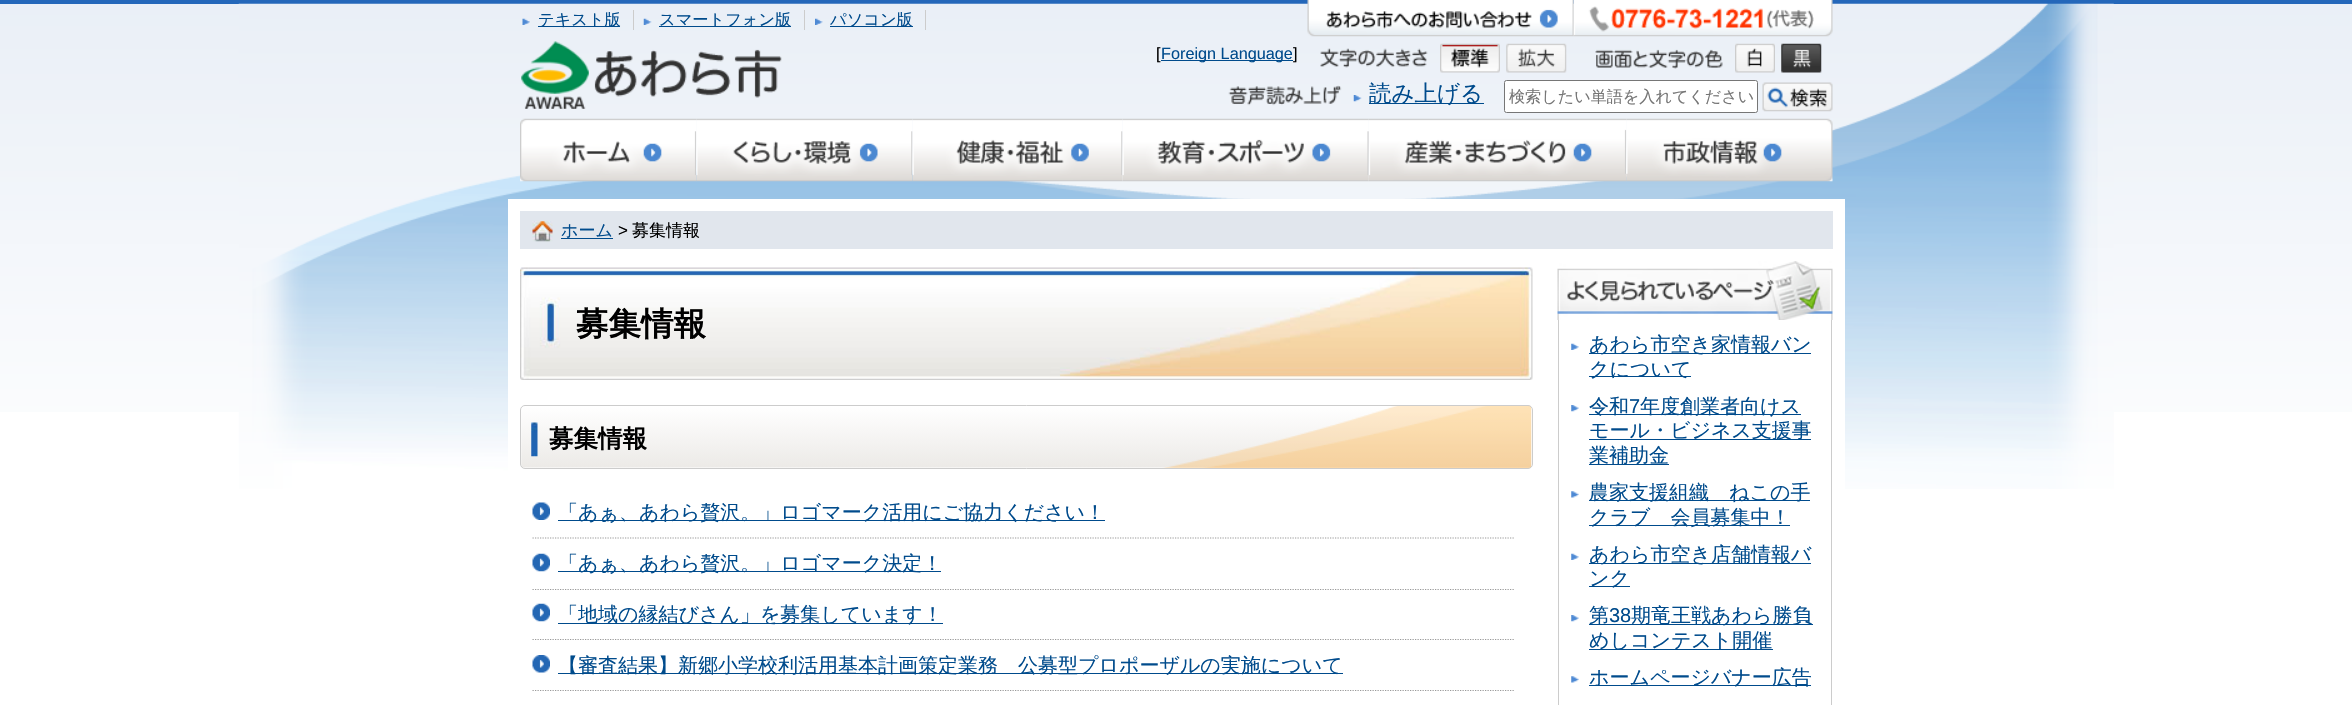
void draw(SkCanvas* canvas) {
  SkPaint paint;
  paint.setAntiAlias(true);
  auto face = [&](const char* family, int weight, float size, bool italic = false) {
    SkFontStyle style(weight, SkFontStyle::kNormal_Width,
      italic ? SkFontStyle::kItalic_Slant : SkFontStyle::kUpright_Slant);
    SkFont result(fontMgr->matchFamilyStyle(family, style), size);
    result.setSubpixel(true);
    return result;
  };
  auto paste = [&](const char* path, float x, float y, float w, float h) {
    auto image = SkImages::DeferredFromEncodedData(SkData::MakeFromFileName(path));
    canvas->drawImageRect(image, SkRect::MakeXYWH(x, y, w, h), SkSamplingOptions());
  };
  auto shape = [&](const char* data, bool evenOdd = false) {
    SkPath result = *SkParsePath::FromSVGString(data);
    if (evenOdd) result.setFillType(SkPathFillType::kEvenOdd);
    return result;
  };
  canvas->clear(0xffffffff);
  paste("img/1.png", 0, 4, 2352, 408);
  paint.setColor(0xff2467ba);
  canvas->drawRect(SkRect::MakeXYWH(0, 0, 2352, 4), paint);
  paste("img/2.png", 238, 3, 1876, 486);
  paint.setColor(0xffcccccc);
  canvas->drawRect(SkRect::MakeXYWH(633, 10, 1, 20), paint);
  paste("img/3.png", 522, 18, 8, 7);
  paint.setColor(0xff004b8c);
  canvas->drawRect(SkRect::MakeXYWH(538, 26, 82, 1), paint);
  paint.setColor(0xffcccccc);
  canvas->drawRect(SkRect::MakeXYWH(804, 10, 1, 20), paint);
  paste("img/4.png", 643, 18, 9, 7);
  paint.setColor(0xff004b8c);
  canvas->drawRect(SkRect::MakeXYWH(659, 26, 132, 1), paint);
  paint.setColor(0xffcccccc);
  canvas->drawRect(SkRect::MakeXYWH(925, 10, 1, 20), paint);
  paste("img/5.png", 815, 18, 8, 7);
  paint.setColor(0xff004b8c);
  canvas->drawRect(SkRect::MakeXYWH(830, 26, 83, 1), paint);
  paste("img/6.png", 1307, 0, 267, 37);
  paste("img/7.png", 1573, 0, 260, 37);
  paste("img/8.png", 521, 41, 261, 68);
  canvas->drawRect(SkRect::MakeXYWH(1161, 60, 132, 1), paint);
  paste("img/9.png", 1320, 48, 108, 20);
  paste("img/10.png", 1440, 43, 60, 30);
  paste("img/11.png", 1506, 43, 61, 30);
  paste("img/12.png", 1595, 49, 128, 20);
  paste("img/13.png", 1735, 43, 40, 30);
  paste("img/14.png", 1781, 43, 41, 30);
  paste("img/15.png", 1228, 85, 114, 21);
  paste("img/16.png", 1353, 95, 9, 7);
  canvas->drawRect(SkRect::MakeXYWH(1369, 103, 115, 1), paint);
  paint.setColor(0xffffffff);
  canvas->drawRoundRect(SkRect::MakeXYWH(1504.5f, 80.5f, 253, 32), 2, 2, paint);
  paint.setStroke(true);
  paint.setStrokeWidth(1);
  paint.setColor(0xff767676);
  canvas->drawRoundRect(SkRect::MakeXYWH(1504.5f, 80.5f, 253, 32), 2, 2, paint);
  paste("img/17.png", 1762, 82, 71, 30);
  paste("img/18.png", 520, 118, 177, 64);
  paste("img/19.png", 696, 118, 217, 64);
  paste("img/20.png", 912, 118, 211, 64);
  paste("img/21.png", 1122, 118, 247, 64);
  paste("img/22.png", 1368, 118, 259, 64);
  paste("img/23.png", 1626, 118, 207, 64);
  paint.setStroke(false);
  paint.setColor(0xffffffff);
  canvas->drawRect(SkRect::MakeXYWH(508, 199, 1337, 290), paint);
  paint.setColor(0xffe1e6ed);
  canvas->drawRect(SkRect::MakeXYWH(520, 211, 1313, 38), paint);
  paste("img/24.png", 532, 221, 21, 21);
  paint.setColor(0xff004b8c);
  canvas->drawRect(SkRect::MakeXYWH(561, 238, 52, 1), paint);
  paste("img/25.png", 520, 267, 1013, 113);
  paste("img/26.png", 521, 405, 1011, 64);
  paint.setStroke(true);
  paint.setColor(0xffcccccc);
  canvas->drawRoundRect(SkRect::MakeXYWH(520.5f, 405.5f, 1012, 63), 4.5f, 4.5f, paint);
  paste("img/27.png", 531, 422, 7, 35);
  paste("img/28.png", 532, 502, 18, 18);
  paint.setStrokeWidth(1.2f);
  paint.setColor(0xff999999);
  paint.setPathEffect(SkDashPathEffect::Make({{1.25f, 1.25f}}, 0));
  canvas->drawPath(shape("M532.5 538H1514"), paint);
  paint.setPathEffect(nullptr);
  paint.setStroke(false);
  paint.setColor(0xff004b8c);
  canvas->drawRect(SkRect::MakeXYWH(558, 520, 547, 1), paint);
  paste("img/29.png", 532, 553, 18, 19);
  paint.setStroke(true);
  paint.setColor(0xff999999);
  paint.setPathEffect(SkDashPathEffect::Make({{1.25f, 1.25f}}, 0));
  canvas->drawPath(shape("M532.5 589.5H1514"), paint);
  paint.setPathEffect(nullptr);
  paint.setStroke(false);
  paint.setColor(0xff004b8c);
  canvas->drawRect(SkRect::MakeXYWH(558, 571, 383, 1), paint);
  paste("img/29.png", 532, 603, 18, 19);
  paint.setStroke(true);
  paint.setColor(0xff999999);
  paint.setPathEffect(SkDashPathEffect::Make({{1.25f, 1.25f}}, 0));
  canvas->drawPath(shape("M532.5 639.5H1514"), paint);
  paint.setPathEffect(nullptr);
  paint.setStroke(false);
  paint.setColor(0xff004b8c);
  canvas->drawRect(SkRect::MakeXYWH(558, 623, 385, 1), paint);
  paste("img/30.png", 532, 655, 18, 18);
  paint.setStroke(true);
  paint.setColor(0xff999999);
  paint.setPathEffect(SkDashPathEffect::Make({{1.25f, 1.25f}}, 0));
  canvas->drawPath(shape("M532.5 690.5H1514"), paint);
  paint.setPathEffect(nullptr);
  paint.setStroke(false);
  paint.setColor(0xff004b8c);
  canvas->drawRect(SkRect::MakeXYWH(558, 673, 785, 1), paint);
  paste("img/31.png", 1557, 261, 276, 59);
  paint.setColor(0xffcccccc);
  canvas->drawRect(SkRect::MakeXYWH(1831, 320, 1, 385), paint);
  canvas->drawRect(SkRect::MakeXYWH(1558, 320, 1, 385), paint);
  paste("img/32.png", 1571, 343, 8, 7);
  paint.setColor(0xff004b8c);
  canvas->drawRect(SkRect::MakeXYWH(1589, 353, 222, 1), paint);
  canvas->drawRect(SkRect::MakeXYWH(1589, 376, 102, 1), paint);
  paste("img/33.png", 1571, 405, 8, 7);
  {
    const struct { float x, y, w, h; SkColor color; } items[] = {
      {1589, 414, 212, 1, 0xff004b8c},
      {1589, 439, 222, 1, 0xff004b8c},
      {1589, 464, 80, 1, 0xff004b8c},
    };
    for (auto [x, y, w, h, color] : items) {
      paint.setColor(color);
      canvas->drawRect(SkRect::MakeXYWH(x, y, w, h), paint);
    }
  }
  paste("img/34.png", 1571, 491, 8, 7);
  canvas->drawRect(SkRect::MakeXYWH(1589, 500, 221, 1), paint);
  canvas->drawRect(SkRect::MakeXYWH(1589, 525, 201, 1), paint);
  paste("img/32.png", 1571, 553, 8, 7);
  canvas->drawRect(SkRect::MakeXYWH(1589, 563, 222, 1), paint);
  canvas->drawRect(SkRect::MakeXYWH(1589, 586, 41, 1), paint);
  paste("img/33.png", 1571, 615, 8, 7);
  canvas->drawRect(SkRect::MakeXYWH(1589, 624, 224, 1), paint);
  canvas->drawRect(SkRect::MakeXYWH(1589, 649, 184, 1), paint);
  paste("img/34.png", 1571, 676, 8, 7);
  canvas->drawRect(SkRect::MakeXYWH(1589, 685, 222, 1), paint);
  auto f0 = face("WenQuanYi Zen Hei", 500, 16.25f);
  {
    const struct { const char* s; float x, y; } items[] = {
      {"テキスト版", 538, 25},
      {"スマートフォン版", 659, 25},
      {"パソコン版", 830, 25},
    };
    for (auto [s, x, y] : items) {
      canvas->drawString(s, x, y, f0, paint);
    }
  }
  auto f1 = face("Liberation Sans", 400, 16.25f);
  paint.setColor(0xff000000);
  canvas->drawString("[", 1156, 59, f1, paint);
  paint.setColor(0xff004b8c);
  canvas->drawString("Foreign Language", 1161, 59, f1, paint);
  paint.setColor(0xff000000);
  canvas->drawString("]", 1293, 59, f1, paint);
  auto f2 = face("WenQuanYi Zen Hei", 500, 22.5f);
  paint.setColor(0xff004b8c);
  canvas->drawString("読み上げる", 1369, 101, f2, paint);
  auto f3 = face("WenQuanYi Zen Hei", 500, 16.1f);
  paint.setColor(0xff757575);
  canvas->drawString("検索したい単語を入れてください", 1509, 102, f3, paint);
  auto f4 = face("WenQuanYi Zen Hei", 500, 17);
  paint.setColor(0xff004b8c);
  canvas->drawString("ホーム", 561, 236, f4, paint);
  auto f5 = face("Liberation Sans", 400, 17);
  paint.setColor(0xff000000);
  canvas->drawString(">", 618, 236, f5, paint);
  canvas->drawString("募集情報", 632, 236, f4, paint);
  auto f6 = face("WenQuanYi Zen Hei", 700, 32.5f);
  canvas->drawString("募集情報", 576, 335, f6, paint);
  auto f7 = face("WenQuanYi Zen Hei", 700, 24.5f);
  canvas->drawString("募集情報", 549, 447, f7, paint);
  auto f8 = face("WenQuanYi Zen Hei", 500, 20);
  paint.setColor(0xff004b8c);
  {
    const struct { const char* s; float x, y; } items[] = {
      {"「あぁ、あわら贅沢。」ロゴマーク活用にご協力ください！", 558, 519},
      {"「あぁ、あわら贅沢。」ロゴマーク決定！", 558, 570},
      {"「地域の縁結びさん」を募集しています！", 558, 621},
      {"【審査結果】新郷小学校利活用基本計画策定業務　公募型プロポーザルの実施について", 558, 672},
      {"あわら市空き家情報バン", 1589, 351},
      {"クについて", 1589, 376},
      {"令和", 1589, 413},
    };
    for (auto [s, x, y] : items) {
      canvas->drawString(s, x, y, f8, paint);
    }
  }
  auto f9 = face("Liberation Sans", 400, 20);
  canvas->drawString("7", 1629, 413, f9, paint);
  {
    const struct { const char* s; float x, y; } items[] = {
      {"年度創業者向けス", 1640, 413},
      {"モール・ビジネス支援事", 1589, 437},
      {"業補助金", 1589, 462},
      {"農家支援組織　ねこの手", 1589, 499},
      {"クラブ　会員募集中！", 1589, 524},
      {"あわら市空き店舗情報バ", 1589, 561},
      {"ンク", 1589, 585},
      {"第", 1589, 622},
    };
    for (auto [s, x, y] : items) {
      canvas->drawString(s, x, y, f8, paint);
    }
  }
  canvas->drawString("38", 1609, 622, f9, paint);
  {
    const struct { const char* s; float x, y; } items[] = {
      {"期竜王戦あわら勝負", 1631, 622},
      {"めしコンテスト開催", 1589, 647},
      {"ホームページバナー広告", 1589, 684},
    };
    for (auto [s, x, y] : items) {
      canvas->drawString(s, x, y, f8, paint);
    }
  }
}
